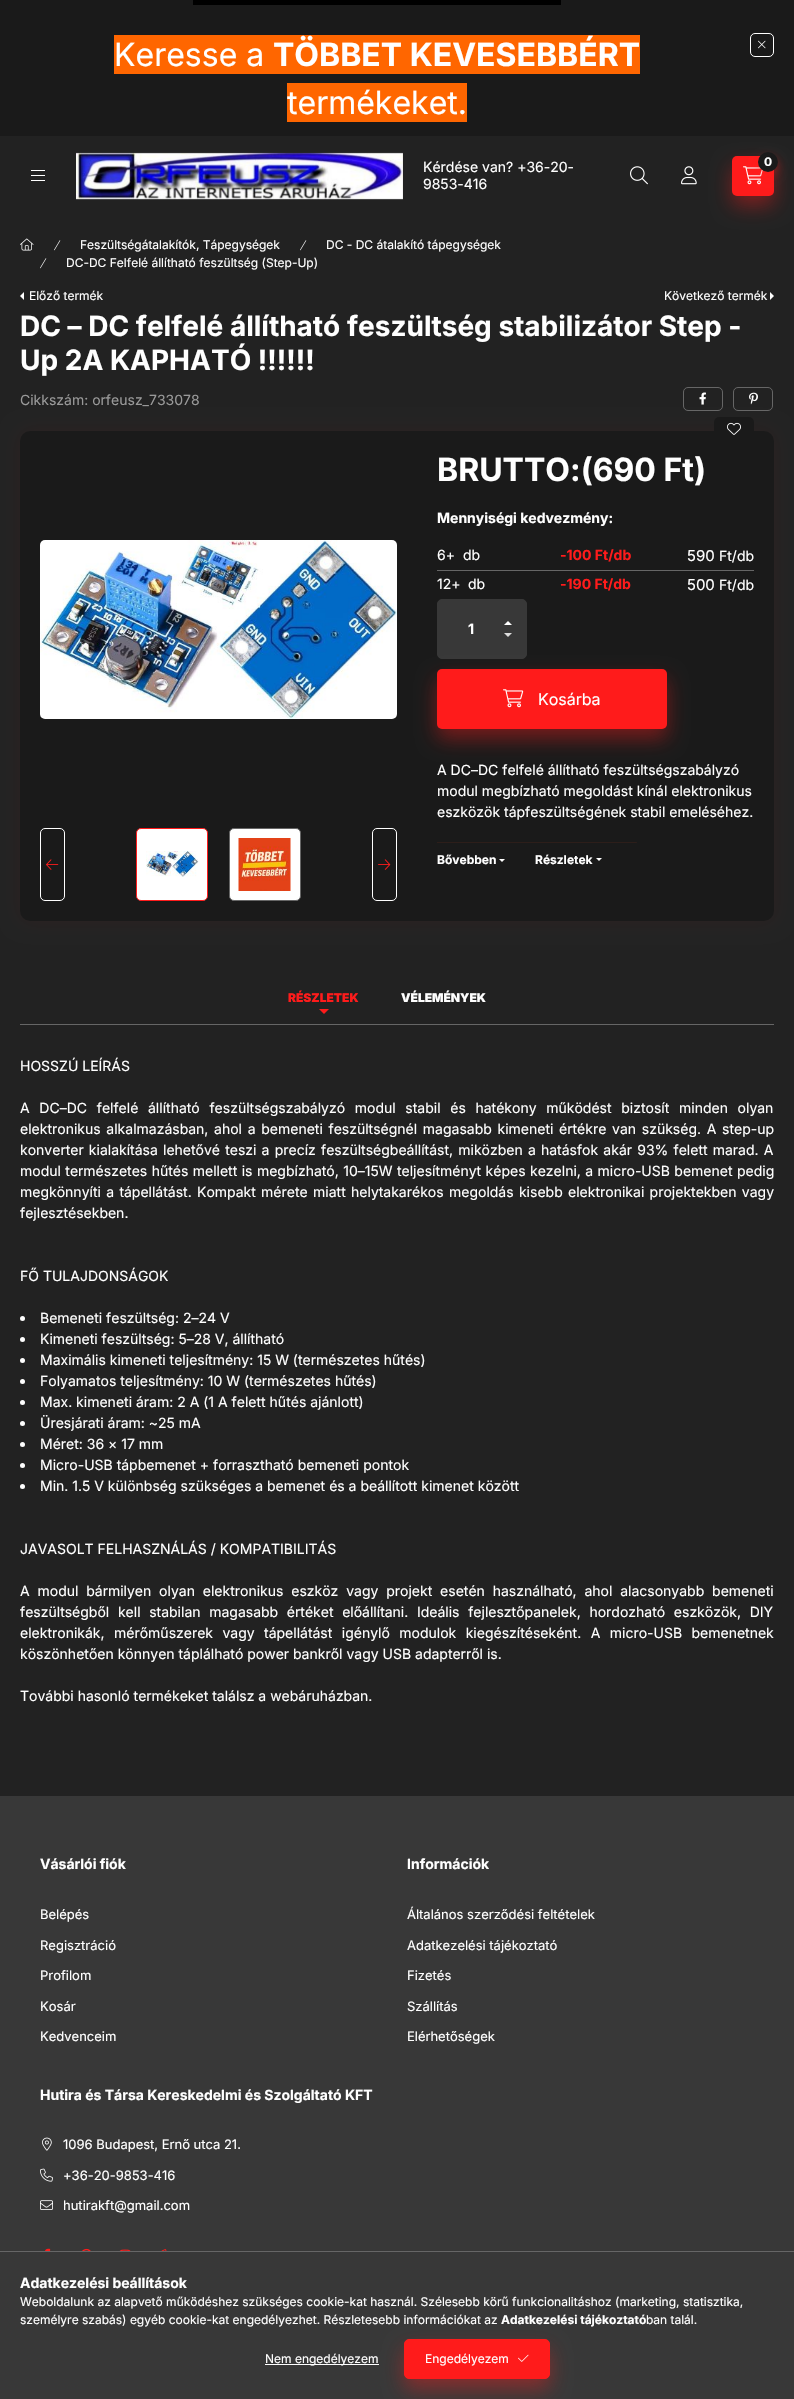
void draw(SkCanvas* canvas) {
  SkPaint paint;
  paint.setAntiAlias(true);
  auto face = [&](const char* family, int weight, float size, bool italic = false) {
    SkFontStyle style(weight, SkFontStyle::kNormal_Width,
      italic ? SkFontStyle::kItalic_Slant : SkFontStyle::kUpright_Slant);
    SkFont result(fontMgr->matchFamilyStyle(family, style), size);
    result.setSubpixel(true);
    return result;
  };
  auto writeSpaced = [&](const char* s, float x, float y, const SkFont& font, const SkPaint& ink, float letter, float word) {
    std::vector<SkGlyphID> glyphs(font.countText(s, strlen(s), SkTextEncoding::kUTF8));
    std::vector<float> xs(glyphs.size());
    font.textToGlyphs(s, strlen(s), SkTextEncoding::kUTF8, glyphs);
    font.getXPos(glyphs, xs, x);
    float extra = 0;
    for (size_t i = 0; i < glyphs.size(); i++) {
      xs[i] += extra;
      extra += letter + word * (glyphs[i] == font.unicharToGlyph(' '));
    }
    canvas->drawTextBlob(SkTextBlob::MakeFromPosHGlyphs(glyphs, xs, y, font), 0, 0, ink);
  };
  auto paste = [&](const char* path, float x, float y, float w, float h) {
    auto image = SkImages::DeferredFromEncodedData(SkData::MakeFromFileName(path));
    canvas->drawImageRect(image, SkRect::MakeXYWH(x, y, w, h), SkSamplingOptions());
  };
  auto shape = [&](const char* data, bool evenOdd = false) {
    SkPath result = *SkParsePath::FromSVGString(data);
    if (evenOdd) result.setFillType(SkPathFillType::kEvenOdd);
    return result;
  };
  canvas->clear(0xff222222);
  paint.setColor(0x66ff1b1b);
  paint.setMaskFilter(SkMaskFilter::MakeBlur(kNormal_SkBlurStyle, 10));
  canvas->drawRoundRect(SkRect::MakeXYWH(732, 166, 42, 40), 5, 5, paint);
  paint.setMaskFilter(nullptr);
  {
    const struct { float x, y, w, h; SkColor color; } items[] = {
      {0, 0, 794, 136, 0xff1a1a1a},
      {193, 0, 368, 5, 0xff000000},
      {114, 35, 526, 39, 0xffff6600},
      {287, 83, 180, 39, 0xffff6600},
    };
    for (auto [x, y, w, h, color] : items) {
      paint.setColor(color);
      canvas->drawRect(SkRect::MakeXYWH(x, y, w, h), paint);
    }
  }
  paint.setStroke(true);
  paint.setStrokeWidth(1);
  paint.setColor(0xffffffff);
  canvas->drawRoundRect(SkRect::MakeXYWH(750.5f, 33.5f, 23, 23), 4.5f, 4.5f, paint);
  paste("img/1.png", 758, 40, 8, 9);
  paint.setStroke(false);
  {
    const struct { float x, y, w, h; SkColor color; } items[] = {
      {31, 170, 14, 1, 0xffffffff},
      {31, 175, 14, 1, 0xffffffff},
      {31, 180, 14, 1, 0xffffffff},
    };
    for (auto [x, y, w, h, color] : items) {
      paint.setColor(color);
      canvas->drawRect(SkRect::MakeXYWH(x, y, w, h), paint);
    }
  }
  paste("img/2.png", 76, 152, 327, 48);
  paint.setColor(0xffff1b1b);
  canvas->drawRoundRect(SkRect::MakeXYWH(732, 156, 42, 40), 5, 5, paint);
  paste("img/3.png", 743, 166, 20, 19);
  paint.setColor(0x66ff1b1b);
  paint.setMaskFilter(SkMaskFilter::MakeBlur(kNormal_SkBlurStyle, 5));
  canvas->drawRoundRect(SkRect::MakeXYWH(758, 157, 20, 20), 10, 10, paint);
  paint.setMaskFilter(nullptr);
  paint.setColor(0xff1a1a1a);
  canvas->drawCircle(768, 162, 10, paint);
  paste("img/4.png", 630, 166, 18, 19);
  paste("img/5.png", 681, 166, 16, 19);
  paste("img/6.png", 20, 238, 14, 13);
  paste("img/7.png", 54, 240, 7, 11);
  paste("img/7.png", 300, 240, 7, 11);
  paste("img/7.png", 40, 258, 7, 11);
  paint.setColor(0xffffffff);
  canvas->drawPath(shape("M24 300V292L20 296Z"), paint);
  canvas->drawPath(shape("M770 300V292L774 296Z"), paint);
  paint.setStroke(true);
  paint.setColor(0xff666666);
  canvas->drawRoundRect(SkRect::MakeXYWH(683.5f, 387.5f, 39, 23), 4.5f, 4.5f, paint);
  paste("img/8.png", 699, 392, 7, 13);
  canvas->drawRoundRect(SkRect::MakeXYWH(733.5f, 387.5f, 39, 23), 4.5f, 4.5f, paint);
  paste("img/9.png", 749, 392, 9, 13);
  paint.setStroke(false);
  paint.setColor(0x0dff1b1b);
  paint.setMaskFilter(SkMaskFilter::MakeBlur(kNormal_SkBlurStyle, 10));
  canvas->drawRoundRect(SkRect::MakeXYWH(20, 431, 754, 490), 10, 10, paint);
  paint.setMaskFilter(nullptr);
  paint.setColor(0xff1a1a1a);
  canvas->drawRoundRect(SkRect::MakeXYWH(20, 431, 754, 490), 10, 10, paint);
  canvas->drawRoundRect(SkRect::MakeXYWH(714, 417, 40, 24), 5, 5, paint);
  paste("img/10.png", 727, 422, 14, 13);
  paste("img/11.png", 40, 540, 357, 179);
  paint.setStroke(true);
  paint.setColor(0xffffffff);
  canvas->drawRoundRect(SkRect::MakeXYWH(40.5f, 828.5f, 24, 72), 4.5f, 4.5f, paint);
  paste("img/12.png", 46, 859, 13, 11);
  paint.setStroke(false);
  canvas->drawRoundRect(SkRect::MakeXYWH(136.5f, 828.5f, 71, 72), 4.5f, 4.5f, paint);
  paint.setStroke(true);
  paint.setColor(0xffff1b1b);
  canvas->drawRoundRect(SkRect::MakeXYWH(136.5f, 828.5f, 71, 72), 4.5f, 4.5f, paint);
  paste("img/13.png", 146, 851, 53, 26);
  paint.setStroke(false);
  paint.setColor(0xffffffff);
  canvas->drawRoundRect(SkRect::MakeXYWH(229.5f, 828.5f, 71, 72), 4.5f, 4.5f, paint);
  paint.setStroke(true);
  paint.setColor(0xff666666);
  canvas->drawRoundRect(SkRect::MakeXYWH(229.5f, 828.5f, 71, 72), 4.5f, 4.5f, paint);
  paste("img/14.png", 238, 838, 53, 53);
  paint.setColor(0xffffffff);
  canvas->drawRoundRect(SkRect::MakeXYWH(372.5f, 828.5f, 24, 72), 4.5f, 4.5f, paint);
  paste("img/15.png", 378, 859, 13, 11);
  paint.setStroke(false);
  paint.setColor(0xff666666);
  canvas->drawRect(SkRect::MakeXYWH(437, 570, 317, 1), paint);
  paint.setColor(0xff383838);
  canvas->drawRoundRect(SkRect::MakeXYWH(437.5f, 599.5f, 89, 59), 4.5f, 4.5f, paint);
  paint.setStroke(true);
  canvas->drawRoundRect(SkRect::MakeXYWH(437.5f, 599.5f, 89, 59), 4.5f, 4.5f, paint);
  paint.setStroke(false);
  paint.setColor(0xffffffff);
  canvas->drawPath(shape("M512 625H504L508 621Z"), paint);
  paint.setColor(0xffdddddd);
  canvas->drawPath(shape("M504 633H512L508 637Z"), paint);
  paint.setColor(0x66ff1b1b);
  paint.setMaskFilter(SkMaskFilter::MakeBlur(kNormal_SkBlurStyle, 10));
  canvas->drawRoundRect(SkRect::MakeXYWH(437, 679, 230, 60), 5, 5, paint);
  paint.setMaskFilter(nullptr);
  paint.setColor(0xffff1b1b);
  canvas->drawRoundRect(SkRect::MakeXYWH(437, 669, 230, 60), 5, 5, paint);
  paste("img/16.png", 503, 689, 21, 19);
  paste("img/17.png", 437, 842, 200, 1);
  paint.setColor(0xffffffff);
  canvas->drawPath(shape("M499 859H505L502 862Z"), paint);
  canvas->drawPath(shape("M596 858H602L599 861Z"), paint);
  paint.setColor(0xff666666);
  canvas->drawRect(SkRect::MakeXYWH(20, 1024, 754, 1), paint);
  paint.setColor(0xffff1b1b);
  canvas->drawPath(shape("M319 1009H329L324 1014Z"), paint);
  paint.setColor(0xffffffff);
  canvas->drawCircle(22.5f, 1318.5f, 2.5f, paint);
  canvas->drawCircle(22.5f, 1339.5f, 2.5f, paint);
  canvas->drawCircle(22.5f, 1360.5f, 2.5f, paint);
  canvas->drawCircle(22.5f, 1381.5f, 2.5f, paint);
  canvas->drawCircle(22.5f, 1402.5f, 2.5f, paint);
  canvas->drawCircle(22.5f, 1423.5f, 2.5f, paint);
  canvas->drawCircle(22.5f, 1444.5f, 2.5f, paint);
  canvas->drawCircle(22.5f, 1465.5f, 2.5f, paint);
  canvas->drawCircle(22.5f, 1486.5f, 2.5f, paint);
  paint.setColor(0xff383838);
  canvas->drawRect(SkRect::MakeXYWH(0, 1796, 794, 455), paint);
  paste("img/18.png", 42, 2137, 10, 14);
  paste("img/19.png", 40, 2168, 13, 14);
  paste("img/20.png", 40, 2200, 13, 10);
  paste("img/21.png", 45, 2248, 6, 3);
  paste("img/22.png", 82, 2248, 9, 3);
  paste("img/23.png", 119, 2249, 12, 2);
  paste("img/24.png", 161, 2249, 6, 2);
  {
    const struct { float x, y, w, h; SkColor color; } items[] = {
      {0, 2252, 794, 147, 0xff383838},
      {0, 2251, 794, 1, 0xff666666},
      {265, 2364, 114, 1, 0xffffffff},
    };
    for (auto [x, y, w, h, color] : items) {
      paint.setColor(color);
      canvas->drawRect(SkRect::MakeXYWH(x, y, w, h), paint);
    }
  }
  paint.setColor(0x66ff1b1b);
  paint.setMaskFilter(SkMaskFilter::MakeBlur(kNormal_SkBlurStyle, 10));
  canvas->drawRoundRect(SkRect::MakeXYWH(404, 2349, 146, 40), 5, 5, paint);
  paint.setMaskFilter(nullptr);
  paint.setColor(0xffff1b1b);
  canvas->drawRoundRect(SkRect::MakeXYWH(404.5f, 2339.5f, 145, 39), 4.5f, 4.5f, paint);
  paint.setStroke(true);
  canvas->drawRoundRect(SkRect::MakeXYWH(404.5f, 2339.5f, 145, 39), 4.5f, 4.5f, paint);
  paste("img/25.png", 518, 2354, 11, 8);
  auto f0 = face("Inter", 400, 32);
  paint.setStroke(false);
  paint.setColor(0xffffffff);
  canvas->drawString("Keresse a", 114, 66, f0, paint);
  auto f1 = face("Inter", 700, 32);
  canvas->drawString("TÖBBET KEVESEBBÉRT", 273, 66, f1, paint);
  canvas->drawString("termékeket.", 287, 114, f0, paint);
  auto f2 = face("Inter", 400, 14);
  canvas->drawString("Kérdése van? +36-20-", 423, 172, f2, paint);
  canvas->drawString("9853-416", 423, 189, f2, paint);
  auto f3 = face("Inter", 700, 12);
  canvas->drawString("0", 764, 166, f3, paint);
  auto f4 = face("Inter", 400, 12);
  {
    const struct { const char* s; float x, y; } items[] = {
      {"Feszültségátalakítók, Tápegységek", 80, 249},
      {"DC - DC átalakító tápegységek", 326, 249},
      {"DC-DC Felfelé állítható feszültség (Step-Up)", 66, 267},
      {"Előző termék", 29, 300},
      {"Következő termék", 664, 300},
    };
    for (auto [s, x, y] : items) {
      canvas->drawString(s, x, y, f4, paint);
    }
  }
  auto f5 = face("Inter", 700, 28);
  canvas->drawString("DC – DC felfelé állítható feszültség stabilizátor Step -", 20, 336, f5, paint);
  canvas->drawString("Up 2A KAPHATÓ !!!!!!", 20, 370, f5, paint);
  paint.setColor(0xff999999);
  canvas->drawString("Cikkszám: orfeusz_733078", 20, 405, f2, paint);
  paint.setColor(0xffffffff);
  canvas->drawString("BRUTTO:(690 Ft)", 437, 481, f1, paint);
  auto f6 = face("Inter", 700, 14);
  canvas->drawString("Mennyiségi kedvezmény:", 437, 523, f6, paint);
  canvas->drawString("6+", 437, 560, f2, paint);
  canvas->drawString("db", 463, 560, f2, paint);
  paint.setColor(0xffff1b1b);
  canvas->drawString("-100 Ft/db", 560, 560, f6, paint);
  auto f7 = face("Inter", 400, 15);
  paint.setColor(0xffffffff);
  canvas->drawString("590", 687, 561, f7, paint);
  {
    const struct { const char* s; float x, y; } items[] = {
      {"Ft/db", 719, 561},
      {"12+", 437, 589},
      {"db", 468, 589},
    };
    for (auto [s, x, y] : items) {
      canvas->drawString(s, x, y, f2, paint);
    }
  }
  paint.setColor(0xffff1b1b);
  canvas->drawString("-190 Ft/db", 560, 589, f6, paint);
  paint.setColor(0xffffffff);
  canvas->drawString("500", 687, 590, f7, paint);
  canvas->drawString("Ft/db", 719, 590, f2, paint);
  canvas->drawString("1", 468, 634, f6, paint);
  auto f8 = face("Inter", 400, 16);
  canvas->drawString("Kosárba", 538, 705, f8, paint);
  {
    const struct { const char* s; float x, y; } items[] = {
      {"A DC–DC felfelé állítható feszültségszabályzó", 437, 775},
      {"modul megbízható megoldást kínál elektronikus", 437, 796},
      {"eszközök tápfeszültségének stabil emeléséhez.", 437, 817},
    };
    for (auto [s, x, y] : items) {
      canvas->drawString(s, x, y, f2, paint);
    }
  }
  canvas->drawString("Bővebben", 437, 864, f3, paint);
  canvas->drawString("Részletek", 535, 864, f3, paint);
  auto f9 = face("Inter", 900, 12);
  paint.setColor(0xffff1b1b);
  canvas->drawString("RÉSZLETEK", 288, 1002, f9, paint);
  paint.setColor(0xffffffff);
  canvas->drawString("VÉLEMÉNYEK", 401, 1002, f9, paint);
  canvas->drawString("HOSSZÚ LEÍRÁS", 20, 1071, f2, paint);
  writeSpaced("A DC–DC felfelé állítható feszültségszabályzó modul stabil és hatékony működést biztosít minden olyan", 20, 1113, f2, paint, 0, 5.75f);
  writeSpaced("elektronikus alkalmazásban, ahol a bemeneti feszültségnél magasabb kimeneti értékre van szükség. A step-up", 20, 1134, f2, paint, 0, 1.75f);
  writeSpaced("konverter kialakítása lehetővé teszi a precíz feszültségbeállítást, miközben a hatásfok akár 93% felett marad. A", 20, 1155, f2, paint, 0, 1.25f);
  writeSpaced("modul természetes hűtés mellett is megbízható, 10–15W teljesítményt képes kezelni, a micro-USB bemenet pedig", 20, 1176, f2, paint, 0, 0.5f);
  writeSpaced("megkönnyíti a tápellátást. Kompakt mérete miatt helytakarékos megoldás kisebb elektronikai projektekben vagy", 20, 1197, f2, paint, 0, 1.4f);
  {
    const struct { const char* s; float x, y; } items[] = {
      {"fejlesztésekben.", 20, 1218},
      {"FŐ TULAJDONSÁGOK", 20, 1281},
      {"Bemeneti feszültség: 2–24 V", 40, 1323},
      {"Kimeneti feszültség: 5–28 V, állítható", 40, 1344},
      {"Maximális kimeneti teljesítmény: 15 W (természetes hűtés)", 40, 1365},
      {"Folyamatos teljesítmény: 10 W (természetes hűtés)", 40, 1386},
      {"Max. kimeneti áram: 2 A (1 A felett hűtés ajánlott)", 40, 1407},
      {"Üresjárati áram: ~25 mA", 40, 1428},
      {"Méret: 36 × 17 mm", 40, 1449},
      {"Micro-USB tápbemenet + forrasztható bemeneti pontok", 40, 1470},
      {"Min. 1.5 V különbség szükséges a bemenet és a beállított kimenet között", 40, 1491},
      {"JAVASOLT FELHASZNÁLÁS / KOMPATIBILITÁS", 20, 1554},
    };
    for (auto [s, x, y] : items) {
      canvas->drawString(s, x, y, f2, paint);
    }
  }
  writeSpaced("A modul bármilyen olyan elektronikus eszköz vagy projekt esetén használható, ahol alacsonyabb bemeneti", 20, 1596, f2, paint, 0, 3.9f);
  writeSpaced("feszültségből kell stabilan magasabb értéket előállítani. Ideális fejlesztőpanelek, hordozható eszközök, DIY", 20, 1617, f2, paint, 0, 4.75f);
  writeSpaced("elektronikák, mérőműszerek vagy tápellátást igénylő modulok kiegészítéseként. A micro-USB bemenetnek", 20, 1638, f2, paint, 0, 5.5f);
  canvas->drawString("köszönhetően könnyen táplálható power bankről vagy USB adapterről is.", 20, 1659, f2, paint);
  canvas->drawString("További hasonló termékeket találsz a webáruházban.", 20, 1701, f2, paint);
  canvas->drawString("Vásárlói fiók", 40, 1869, f6, paint);
  auto f10 = face("Inter", 400, 13);
  {
    const struct { const char* s; float x, y; } items[] = {
      {"Belépés", 40, 1919},
      {"Regisztráció", 40, 1950},
      {"Profilom", 40, 1980},
      {"Kosár", 40, 2011},
      {"Kedvenceim", 40, 2041},
    };
    for (auto [s, x, y] : items) {
      canvas->drawString(s, x, y, f10, paint);
    }
  }
  canvas->drawString("Információk", 407, 1869, f6, paint);
  {
    const struct { const char* s; float x, y; } items[] = {
      {"Általános szerződési feltételek", 407, 1919},
      {"Adatkezelési tájékoztató", 407, 1950},
      {"Fizetés", 407, 1980},
      {"Szállítás", 407, 2011},
      {"Elérhetőségek", 407, 2041},
    };
    for (auto [s, x, y] : items) {
      canvas->drawString(s, x, y, f10, paint);
    }
  }
  canvas->drawString("Hutira és Társa Kereskedelmi és Szolgáltató KFT", 40, 2100, f6, paint);
  {
    const struct { const char* s; float x, y; } items[] = {
      {"1096 Budapest, Ernő utca 21.", 63, 2149},
      {"+36-20-9853-416", 63, 2180},
      {"hutirakft@gmail.com", 63, 2210},
    };
    for (auto [s, x, y] : items) {
      canvas->drawString(s, x, y, f10, paint);
    }
  }
  canvas->drawString("Adatkezelési beállítások", 20, 2288, f6, paint);
  canvas->drawString("Weboldalunk az alapvető működéshez szükséges cookie-kat használ. Szélesebb körű funkcionalitáshoz (marketing, statisztika,", 20, 2306, f4, paint);
  canvas->drawString("személyre szabás) egyéb cookie-kat engedélyezhet. Részletesebb információkat az", 20, 2324, f4, paint);
  canvas->drawString("Adatkezelési tájékoztató", 501, 2324, f3, paint);
  {
    const struct { const char* s; float x, y; } items[] = {
      {"ban talál.", 646, 2324},
      {"Nem engedélyezem", 265, 2363},
      {"Engedélyezem", 425, 2363},
    };
    for (auto [s, x, y] : items) {
      canvas->drawString(s, x, y, f4, paint);
    }
  }
}
